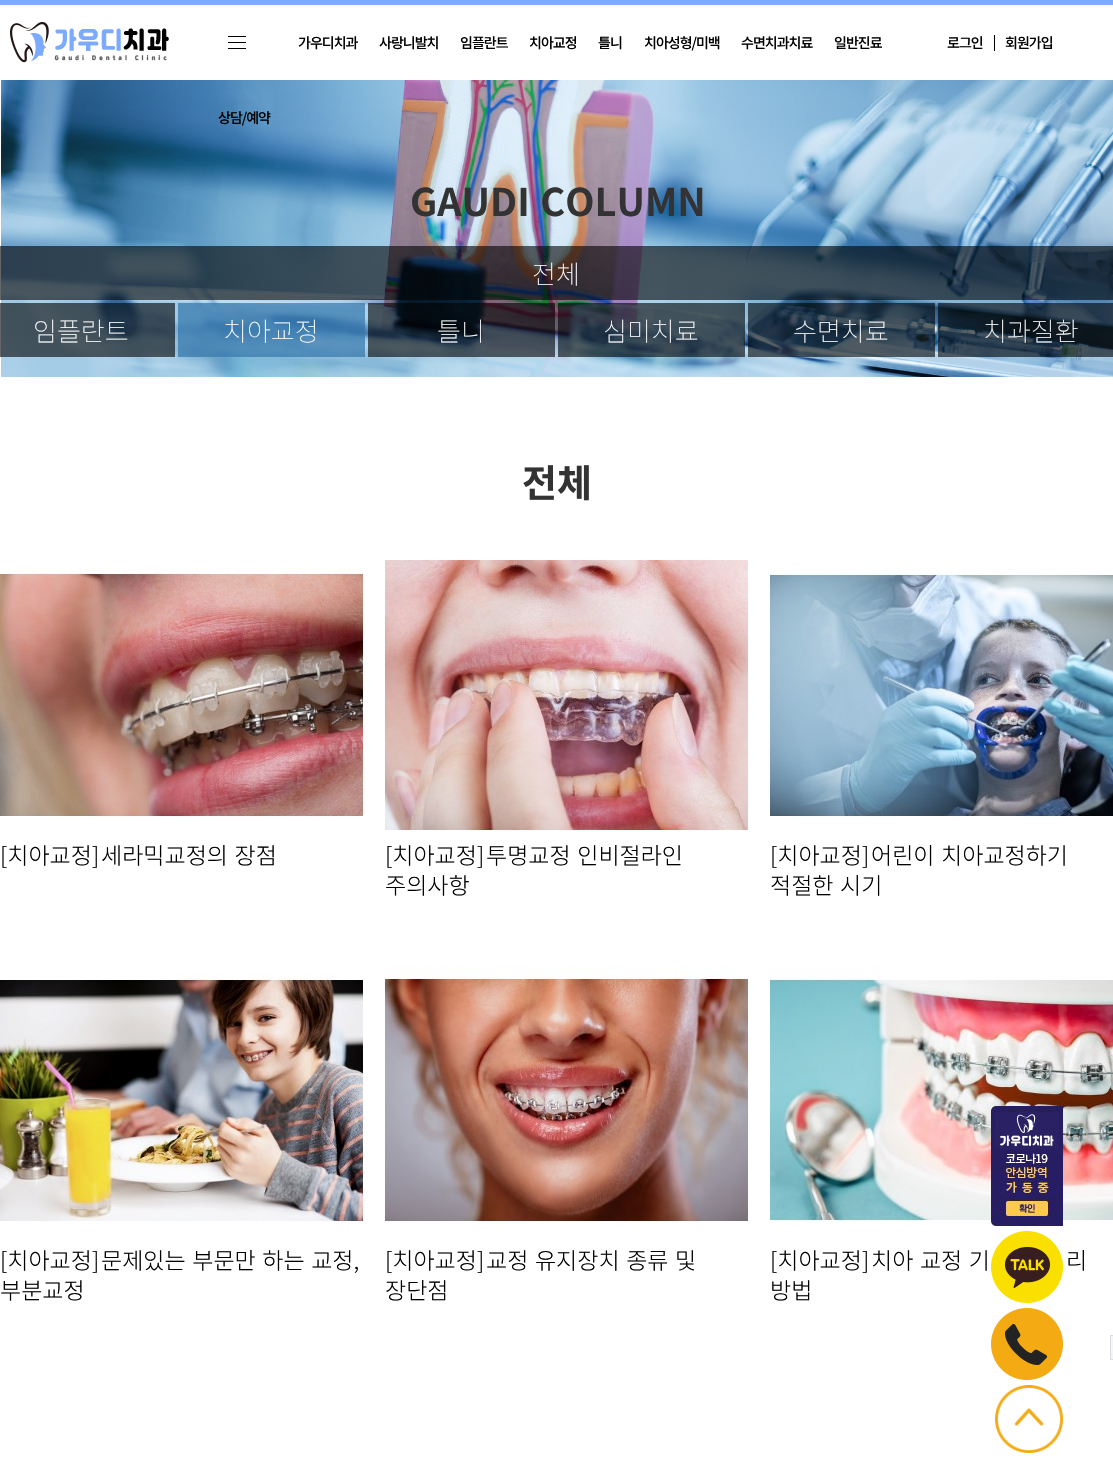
void draw(SkCanvas* canvas) {
  SkPaint paint;
  paint.setAntiAlias(true);
  auto face = [&](const char* family, int weight, float size, bool italic = false) {
    SkFontStyle style(weight, SkFontStyle::kNormal_Width,
      italic ? SkFontStyle::kItalic_Slant : SkFontStyle::kUpright_Slant);
    SkFont result(fontMgr->matchFamilyStyle(family, style), size);
    result.setSubpixel(true);
    return result;
  };
  auto writeSpaced = [&](const char* s, float x, float y, const SkFont& font, const SkPaint& ink, float letter, float word) {
    std::vector<SkGlyphID> glyphs(font.countText(s, strlen(s), SkTextEncoding::kUTF8));
    std::vector<float> xs(glyphs.size());
    font.textToGlyphs(s, strlen(s), SkTextEncoding::kUTF8, glyphs);
    font.getXPos(glyphs, xs, x);
    float extra = 0;
    for (size_t i = 0; i < glyphs.size(); i++) {
      xs[i] += extra;
      extra += letter + word * (glyphs[i] == font.unicharToGlyph(' '));
    }
    canvas->drawTextBlob(SkTextBlob::MakeFromPosHGlyphs(glyphs, xs, y, font), 0, 0, ink);
  };
  auto paste = [&](const char* path, float x, float y, float w, float h) {
    auto image = SkImages::DeferredFromEncodedData(SkData::MakeFromFileName(path));
    canvas->drawImageRect(image, SkRect::MakeXYWH(x, y, w, h), SkSamplingOptions());
  };
  canvas->clear(0xffffffff);
  paint.setColor(0xff7caaff);
  canvas->drawRect(SkRect::MakeXYWH(0, 0, 1113, 5), paint);
  paste("img/1.png", 10, 22, 159, 41);
  {
    const struct { float x, y, w, h; SkColor color; } items[] = {
      {228, 42, 18, 1, 0xff000000},
      {228, 36, 18, 1, 0xff000000},
      {228, 48, 18, 1, 0xff000000},
      {994, 35, 1, 16, 0xff000000},
    };
    for (auto [x, y, w, h, color] : items) {
      paint.setColor(color);
      canvas->drawRect(SkRect::MakeXYWH(x, y, w, h), paint);
    }
  }
  paste("img/2.png", 1, 80, 1112, 297);
  {
    const struct { float x, y, w, h; SkColor color; } items[] = {
      {0, 246, 1113, 54, 0x99000000},
      {0, 303, 175, 54, 0x99000000},
      {178, 303, 187, 54, 0xb33275a9},
      {368, 303, 187, 54, 0x99000000},
      {558, 303, 187, 54, 0x99000000},
      {748, 303, 187, 54, 0x99000000},
      {938, 303, 175, 54, 0x99000000},
    };
    for (auto [x, y, w, h, color] : items) {
      paint.setColor(color);
      canvas->drawRect(SkRect::MakeXYWH(x, y, w, h), paint);
    }
  }
  paste("img/3.png", 0, 568, 363, 249);
  paste("img/4.png", 385, 560, 363, 270);
  paste("img/5.png", 770, 568, 343, 249);
  paste("img/6.png", 0, 973, 363, 249);
  paste("img/7.png", 385, 965, 363, 257);
  paste("img/8.png", 770, 965, 343, 257);
  paint.setColor(0xfff2f5f9);
  canvas->drawRect(SkRect::MakeXYWH(1110.5f, 1335.5f, 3, 24), paint);
  paint.setStroke(true);
  paint.setStrokeWidth(1);
  paint.setColor(0xffd9ded9);
  canvas->drawRect(SkRect::MakeXYWH(1110.5f, 1335.5f, 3, 24), paint);
  paste("img/9.png", 991, 1106, 72, 120);
  paste("img/10.png", 991, 1231, 72, 72);
  paste("img/11.png", 991, 1308, 72, 72);
  paste("img/12.png", 995, 1385, 68, 68);
  auto f0 = face("Noto Sans KR", 500, 14);
  paint.setStroke(false);
  paint.setColor(0xff000000);
  {
    const struct { const char* s; float x, y; } items[] = {
      {"가우디치과", 298, 48},
      {"사랑니발치", 379, 48},
      {"임플란트", 460, 48},
      {"치아교정", 529, 48},
      {"틀니", 598, 48},
      {"치아성형/미백", 644, 48},
      {"수면치과치료", 741, 48},
      {"일반진료", 834, 48},
      {"로그인", 947, 48},
      {"회원가입", 1005, 48},
      {"상담/예약", 218, 123},
    };
    for (auto [s, x, y] : items) {
      writeSpaced(s, x, y, f0, paint, -1, 0);
    }
  }
  auto f1 = face("Noto Sans KR", 700, 38);
  paint.setColor(0xff333333);
  writeSpaced("GAUDI COLUMN", 410, 216, f1, paint, 0, 2);
  auto f2 = face("Noto Sans KR", 100, 26);
  paint.setColor(0xffffffff);
  {
    const struct { const char* s; float x, y; } items[] = {
      {"전체", 532, 284},
      {"임플란트", 33, 341},
      {"치아교정", 223, 341},
      {"틀니", 437, 341},
      {"심미치료", 603, 341},
      {"수면치료", 793, 341},
      {"치과질환", 983, 341},
    };
    for (auto [s, x, y] : items) {
      canvas->drawString(s, x, y, f2, paint);
    }
  }
  paint.setColor(0xff333333);
  canvas->drawString("전체", 522, 497, f1, paint);
  auto f3 = face("Noto Sans KR", 300, 23);
  paint.setColor(0xff000000);
  canvas->drawString("[치아교정]", 0, 864, f3, paint);
  writeSpaced("세라믹교정의 장점", 101, 864, f3, paint, 0, 1.5f);
  canvas->drawString("[치아교정]", 385, 864, f3, paint);
  writeSpaced("투명교정 인비절라인", 486, 864, f3, paint, 0, 1.5f);
  canvas->drawString("주의사항", 385, 894, f3, paint);
  canvas->drawString("[치아교정]", 770, 864, f3, paint);
  writeSpaced("어린이 치아교정하기", 871, 864, f3, paint, 0, 1.5f);
  writeSpaced("적절한 시기", 770, 894, f3, paint, 0, 1.5f);
  canvas->drawString("[치아교정]", 0, 1269, f3, paint);
  writeSpaced("문제있는 부문만 하는 교정,", 101, 1269, f3, paint, 0, 1.5f);
  canvas->drawString("부분교정", 0, 1299, f3, paint);
  canvas->drawString("[치아교정]", 385, 1269, f3, paint);
  writeSpaced("교정 유지장치 종류 및", 486, 1269, f3, paint, 0, 1.5f);
  canvas->drawString("장단점", 385, 1299, f3, paint);
  canvas->drawString("[치아교정]", 770, 1269, f3, paint);
  writeSpaced("치아 교정 기", 871, 1269, f3, paint, 0, 1.5f);
  writeSpaced("리", 1066, 1269, f3, paint, 0, 1.5f);
  canvas->drawString("방법", 770, 1299, f3, paint);
}
